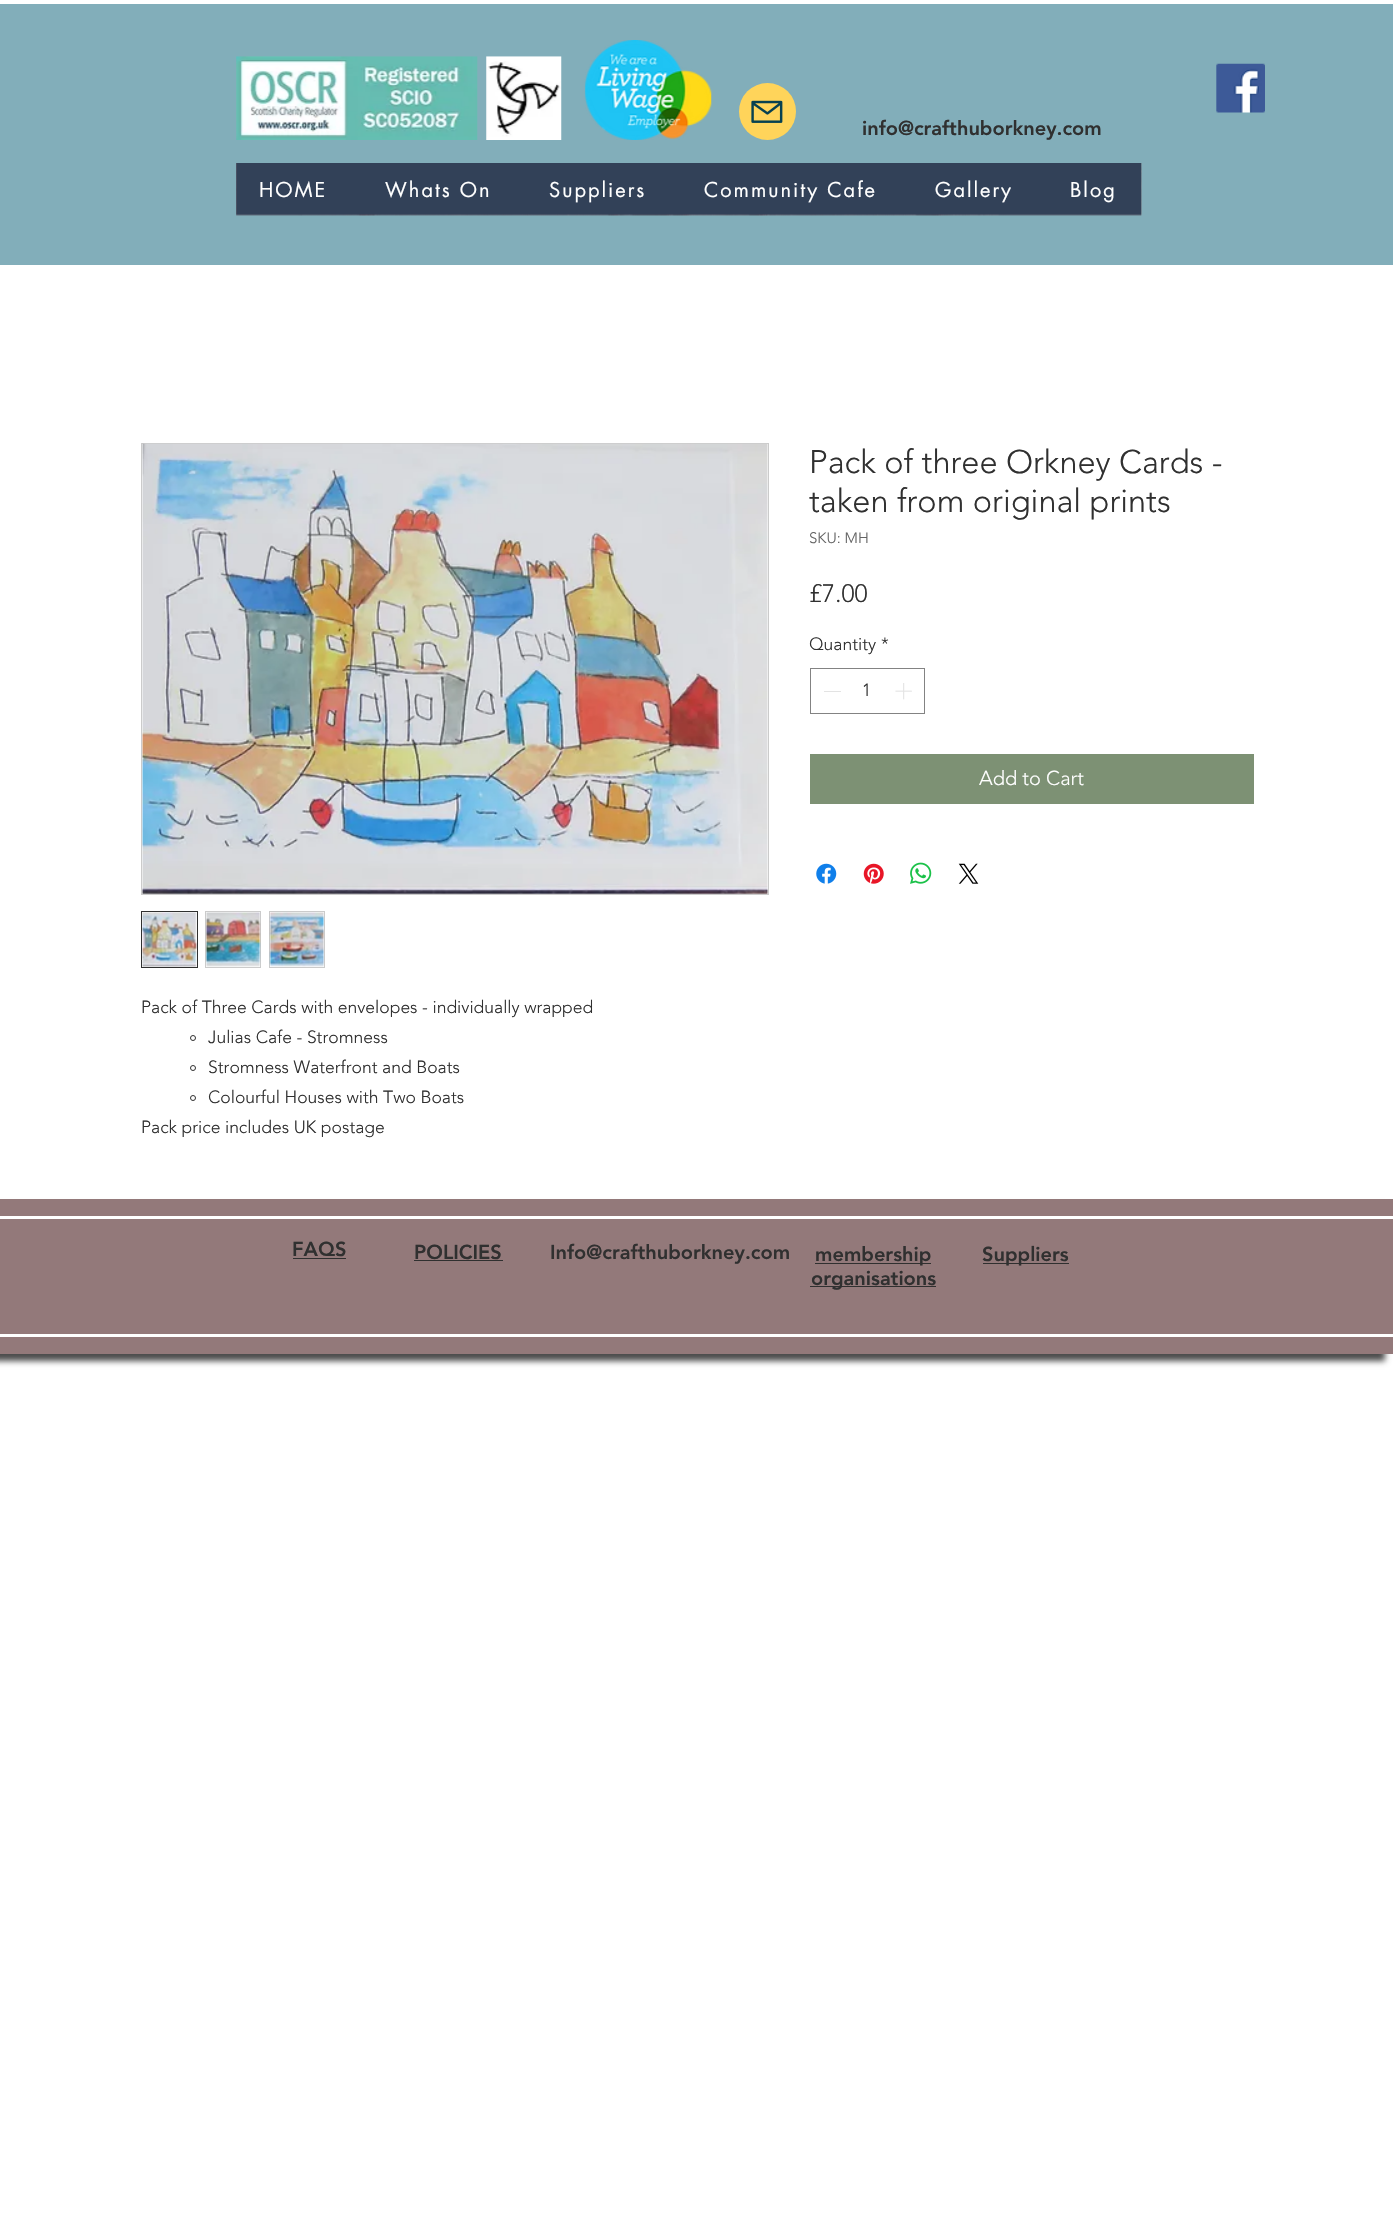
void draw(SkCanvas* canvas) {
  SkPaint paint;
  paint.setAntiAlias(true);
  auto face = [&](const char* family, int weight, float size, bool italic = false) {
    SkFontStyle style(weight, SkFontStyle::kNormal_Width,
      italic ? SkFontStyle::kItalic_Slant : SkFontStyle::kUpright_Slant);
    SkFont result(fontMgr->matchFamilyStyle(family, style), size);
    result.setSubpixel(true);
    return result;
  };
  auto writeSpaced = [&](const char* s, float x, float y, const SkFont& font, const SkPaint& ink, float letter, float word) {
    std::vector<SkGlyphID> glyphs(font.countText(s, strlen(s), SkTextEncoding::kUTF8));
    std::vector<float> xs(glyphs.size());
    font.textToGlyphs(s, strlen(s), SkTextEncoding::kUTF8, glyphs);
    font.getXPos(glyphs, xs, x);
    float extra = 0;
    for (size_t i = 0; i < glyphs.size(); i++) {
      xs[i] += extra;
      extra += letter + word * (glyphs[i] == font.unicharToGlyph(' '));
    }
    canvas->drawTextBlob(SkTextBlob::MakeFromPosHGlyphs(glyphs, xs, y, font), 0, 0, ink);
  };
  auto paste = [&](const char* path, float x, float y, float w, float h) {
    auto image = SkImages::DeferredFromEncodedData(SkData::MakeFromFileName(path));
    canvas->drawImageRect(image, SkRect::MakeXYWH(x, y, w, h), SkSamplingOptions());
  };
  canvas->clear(0xffffffff);
  paint.setColor(0xff82aeba);
  canvas->drawRect(SkRect::MakeXYWH(0, 4, 1393, 261), paint);
  paste("img/1.png", 236, 56, 242, 84);
  paste("img/2.png", 486, 56, 76, 84);
  paste("img/3.png", 584, 40, 128, 100);
  paint.setColor(0xffffd45a);
  canvas->drawCircle(767.5f, 111.5f, 28.5f, paint);
  paste("img/4.png", 751, 100, 32, 23);
  paste("img/5.png", 1216, 63, 49, 50);
  paste("img/6.png", 236, 163, 906, 53);
  paint.setStroke(true);
  paint.setStrokeWidth(1);
  paint.setColor(0xff838383);
  canvas->drawRect(SkRect::MakeXYWH(810.5f, 668.5f, 114, 45), paint);
  paint.setStroke(false);
  paint.setColor(0xffe3e3e3);
  canvas->drawRect(SkRect::MakeXYWH(824, 691, 17, 1), paint);
  paste("img/7.png", 895, 683, 17, 17);
  paint.setColor(0xff7d9174);
  canvas->drawRect(SkRect::MakeXYWH(810, 754, 444, 50), paint);
  paste("img/8.png", 816, 863, 21, 21);
  paste("img/9.png", 863, 863, 21, 21);
  paste("img/10.png", 910, 862, 22, 22);
  paste("img/11.png", 958, 863, 21, 21);
  paint.setStroke(true);
  paint.setColor(0xffcbcbcb);
  canvas->drawRect(SkRect::MakeXYWH(141.5f, 443.5f, 627, 451), paint);
  paste("img/12.png", 142, 443, 626, 451);
  paint.setColor(0xff303030);
  canvas->drawRect(SkRect::MakeXYWH(141.5f, 911.5f, 56, 56), paint);
  paste("img/13.png", 142, 912, 55, 55);
  paint.setColor(0xffcbcbcb);
  canvas->drawRect(SkRect::MakeXYWH(205.5f, 911.5f, 55, 56), paint);
  paste("img/14.png", 205, 912, 56, 55);
  canvas->drawRect(SkRect::MakeXYWH(269.5f, 911.5f, 55, 56), paint);
  paste("img/15.png", 269, 912, 55, 55);
  paint.setColor(0xff303030);
  canvas->drawCircle(193, 1038, 2.5f, paint);
  canvas->drawCircle(193, 1068, 2.5f, paint);
  canvas->drawCircle(193, 1098, 2.5f, paint);
  paint.setStroke(false);
  paint.setColor(0xb3000000);
  paint.setMaskFilter(SkMaskFilter::MakeBlur(kNormal_SkBlurStyle, 3));
  canvas->drawRect(SkRect::MakeXYWH(-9, 1206, 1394, 155), paint);
  paint.setMaskFilter(nullptr);
  {
    const struct { float x, y, w, h; SkColor color; } items[] = {
      {0, 1199, 1393, 155, 0xff93797a},
      {0, 1216, 1393, 3, 0xffffffff},
      {0, 1334, 1393, 3, 0xffffffff},
      {293, 1258, 53, 1, 0xff303030},
      {414, 1260, 89, 1, 0xff303030},
      {815, 1263, 116, 1, 0xff303030},
      {810, 1286, 126, 1, 0xff303030},
      {983, 1263, 86, 1, 0xff303030},
    };
    for (auto [x, y, w, h, color] : items) {
      paint.setColor(color);
      canvas->drawRect(SkRect::MakeXYWH(x, y, w, h), paint);
    }
  }
  auto f0 = face("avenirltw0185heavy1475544", 900, 20);
  canvas->drawString("info@crafthuborkney.com", 862, 135, f0, paint);
  auto f1 = face("futura", 400, 20);
  paint.setColor(0xffffffff);
  {
    const struct { const char* s; float x, y; } items[] = {
      {"HOME", 259, 197},
      {"Whats On", 385, 197},
      {"Suppliers", 549, 197},
      {"Community Cafe", 704, 197},
      {"Gallery", 935, 197},
      {"Blog", 1070, 197},
    };
    for (auto [s, x, y] : items) {
      writeSpaced(s, x, y, f1, paint, 2, 0);
    }
  }
  auto f2 = face("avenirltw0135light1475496", 300, 32.5f);
  paint.setColor(0xff303030);
  canvas->drawString("Pack of three Orkney Cards -", 809, 473, f2, paint);
  canvas->drawString("taken from original prints", 809, 512, f2, paint);
  auto f3 = face("avenirltw0135light1475496", 300, 15);
  paint.setColor(0xff646464);
  canvas->drawString("SKU: MH", 809, 543, f3, paint);
  auto f4 = face("avenirltw0135light1475496", 300, 25);
  paint.setColor(0xff303030);
  canvas->drawString("£7.00", 809, 602, f4, paint);
  auto f5 = face("avenirltw0135light1475496", 300, 17.5f);
  {
    const struct { const char* s; float x, y; } items[] = {
      {"Quantity", 809, 650},
      {"*", 881, 650},
      {"1", 862, 696},
    };
    for (auto [s, x, y] : items) {
      canvas->drawString(s, x, y, f5, paint);
    }
  }
  auto f6 = face("avenirltw0135light1475496", 300, 20);
  paint.setColor(0xffffffff);
  canvas->drawString("Add to Cart", 979, 785, f6, paint);
  paint.setColor(0xff303030);
  {
    const struct { const char* s; float x, y; } items[] = {
      {"Pack of Three Cards with envelopes - individually wrapped", 141, 1013},
      {"Julias Cafe - Stromness", 208, 1043},
      {"Stromness Waterfront and Boats", 208, 1073},
      {"Colourful Houses with Two Boats", 208, 1103},
      {"Pack price includes UK postage", 141, 1133},
    };
    for (auto [s, x, y] : items) {
      canvas->drawString(s, x, y, f5, paint);
    }
  }
  {
    const struct { const char* s; float x, y; } items[] = {
      {"FAQS", 292, 1256},
      {"POLICIES", 414, 1259},
      {"Info@crafthuborkney.com", 550, 1259},
      {"membership", 815, 1261},
      {"organisations", 811, 1285},
      {"Suppliers", 982, 1261},
    };
    for (auto [s, x, y] : items) {
      canvas->drawString(s, x, y, f0, paint);
    }
  }
}
